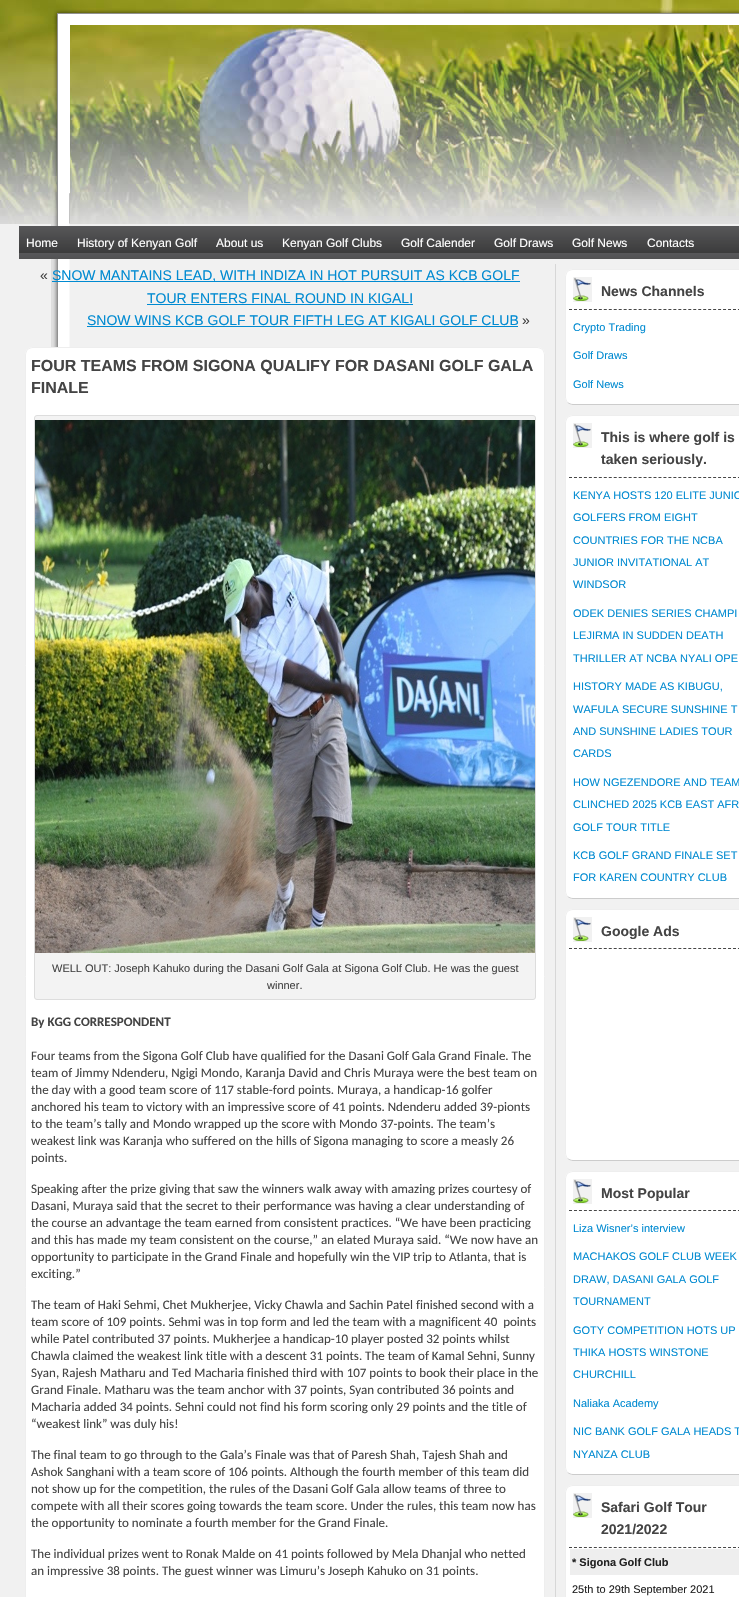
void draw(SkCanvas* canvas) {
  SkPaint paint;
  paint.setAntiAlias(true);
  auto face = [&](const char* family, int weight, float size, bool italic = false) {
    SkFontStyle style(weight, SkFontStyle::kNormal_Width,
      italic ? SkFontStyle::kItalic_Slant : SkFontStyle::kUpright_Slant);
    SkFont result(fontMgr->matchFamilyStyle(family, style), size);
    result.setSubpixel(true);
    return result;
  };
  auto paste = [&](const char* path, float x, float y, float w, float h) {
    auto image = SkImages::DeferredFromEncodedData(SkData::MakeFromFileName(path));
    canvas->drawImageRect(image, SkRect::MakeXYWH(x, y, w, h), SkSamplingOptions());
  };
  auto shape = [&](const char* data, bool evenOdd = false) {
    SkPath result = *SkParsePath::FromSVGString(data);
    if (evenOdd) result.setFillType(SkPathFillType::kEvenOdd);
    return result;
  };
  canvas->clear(0xffffffff);
  paste("img/1.png", 0, 0, 739, 224);
  paste("img/2.png", 53, 9, 686, 215);
  paint.setColor(0xfff1f1f1);
  canvas->drawRect(SkRect::MakeXYWH(0, 224, 739, 1373), paint);
  paste("img/3.png", 51, 224, 19, 123);
  paste("img/4.png", 19, 226, 720, 33);
  {
    const struct { float x, y, w, h; SkColor color; } items[] = {
      {555, 264, 1, 1333, 0xffd7d7d7},
      {52, 281, 468, 1, 0xff008ad1},
      {147, 304, 266, 1, 0xff008ad1},
      {87, 326, 431, 1, 0xff008ad1},
    };
    for (auto [x, y, w, h, color] : items) {
      paint.setColor(color);
      canvas->drawRect(SkRect::MakeXYWH(x, y, w, h), paint);
    }
  }
  paint.setColor(0xffffffff);
  canvas->drawRoundRect(SkRect::MakeXYWH(25, 347, 520, 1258), 8, 8, paint);
  paint.setStroke(true);
  paint.setStrokeWidth(1);
  paint.setColor(0xffeeeeee);
  canvas->drawPath(shape("M27.5 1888.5C26.5 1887 25.5 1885 25.5 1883V355C25.5 353 26.5 351 27.5 349.5C29 348.5 31 347.5 33 347.5H537C539 347.5 541 348.5 542.5 349.5C543.5 351 544.5 353 544.5 355V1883C544.5 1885 543.5 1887 542.5 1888.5"), paint);
  paint.setStroke(false);
  paint.setColor(0xfff3f3f3);
  canvas->drawRoundRect(SkRect::MakeXYWH(34.5f, 415.5f, 501, 584), 2.5f, 2.5f, paint);
  paint.setStroke(true);
  paint.setColor(0xffdddddd);
  canvas->drawRoundRect(SkRect::MakeXYWH(34.5f, 415.5f, 501, 584), 2.5f, 2.5f, paint);
  paste("img/5.png", 35, 420, 500, 533);
  paint.setStroke(false);
  paint.setColor(0xffffffff);
  canvas->drawRoundRect(SkRect::MakeXYWH(565, 269, 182, 136), 8, 8, paint);
  paint.setStroke(true);
  paint.setColor(0xffcccccc);
  canvas->drawPath(shape("M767.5 402.5C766 403.5 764 404.5 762 404.5H573C571 404.5 569 403.5 567.5 402.5"), paint);
  paint.setColor(0xffeeeeee);
  canvas->drawPath(shape("M567.5 402.5C566.5 401 565.5 399 565.5 397V277C565.5 275 566.5 273 567.5 271.5C569 270.5 571 269.5 573 269.5H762C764 269.5 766 270.5 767.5 271.5C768.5 273 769.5 275 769.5 277V397C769.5 399 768.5 401 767.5 402.5"), paint);
  paste("img/6.png", 573, 277, 19, 25);
  paint.setColor(0xff464646);
  paint.setPathEffect(SkDashPathEffect::Make({{3, 1.97f}}, 0));
  canvas->drawPath(shape("M569 309.5H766"), paint);
  paint.setPathEffect(nullptr);
  paint.setStroke(false);
  paint.setColor(0xffffffff);
  canvas->drawRoundRect(SkRect::MakeXYWH(565, 415, 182, 484), 8, 8, paint);
  paint.setStroke(true);
  paint.setColor(0xffcccccc);
  canvas->drawPath(shape("M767.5 896.5C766 897.5 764 898.5 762 898.5H573C571 898.5 569 897.5 567.5 896.5"), paint);
  paint.setColor(0xffeeeeee);
  canvas->drawPath(shape("M567.5 896.5C566.5 895 565.5 893 565.5 891V423C565.5 421 566.5 419 567.5 417.5C569 416.5 571 415.5 573 415.5H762C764 415.5 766 416.5 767.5 417.5C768.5 419 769.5 421 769.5 423V891C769.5 893 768.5 895 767.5 896.5"), paint);
  paste("img/6.png", 573, 423, 19, 25);
  paint.setColor(0xff464646);
  paint.setPathEffect(SkDashPathEffect::Make({{3, 1.97f}}, 0));
  canvas->drawPath(shape("M569 477.5H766"), paint);
  paint.setPathEffect(nullptr);
  paint.setStroke(false);
  paint.setColor(0xffffffff);
  canvas->drawRoundRect(SkRect::MakeXYWH(565, 909, 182, 252), 8, 8, paint);
  paint.setStroke(true);
  paint.setColor(0xffcccccc);
  canvas->drawPath(shape("M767.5 1158.5C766 1159.5 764 1160.5 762 1160.5H573C571 1160.5 569 1159.5 567.5 1158.5"), paint);
  paint.setColor(0xffeeeeee);
  canvas->drawPath(shape("M567.5 1158.5C566.5 1157 565.5 1155 565.5 1153V917C565.5 915 566.5 913 567.5 911.5C569 910.5 571 909.5 573 909.5H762C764 909.5 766 910.5 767.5 911.5C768.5 913 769.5 915 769.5 917V1153C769.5 1155 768.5 1157 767.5 1158.5"), paint);
  paste("img/6.png", 573, 917, 19, 25);
  paint.setColor(0xff464646);
  paint.setPathEffect(SkDashPathEffect::Make({{3, 1.97f}}, 0));
  canvas->drawPath(shape("M569 948.5H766"), paint);
  paint.setPathEffect(nullptr);
  paint.setStroke(false);
  paint.setColor(0xffffffff);
  canvas->drawRoundRect(SkRect::MakeXYWH(565, 1171, 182, 304), 8, 8, paint);
  paint.setStroke(true);
  paint.setColor(0xffcccccc);
  canvas->drawPath(shape("M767.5 1472.5C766 1473.5 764 1474.5 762 1474.5H573C571 1474.5 569 1473.5 567.5 1472.5"), paint);
  paint.setColor(0xffeeeeee);
  canvas->drawPath(shape("M567.5 1472.5C566.5 1471 565.5 1469 565.5 1467V1179C565.5 1177 566.5 1175 567.5 1173.5C569 1172.5 571 1171.5 573 1171.5H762C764 1171.5 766 1172.5 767.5 1173.5C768.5 1175 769.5 1177 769.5 1179V1467C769.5 1469 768.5 1471 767.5 1472.5"), paint);
  paste("img/6.png", 573, 1179, 19, 25);
  paint.setColor(0xff464646);
  paint.setPathEffect(SkDashPathEffect::Make({{3, 1.97f}}, 0));
  canvas->drawPath(shape("M569 1210.5H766"), paint);
  paint.setPathEffect(nullptr);
  paint.setStroke(false);
  paint.setColor(0xffffffff);
  canvas->drawRoundRect(SkRect::MakeXYWH(565, 1485, 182, 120), 8, 8, paint);
  paint.setStroke(true);
  paint.setColor(0xffeeeeee);
  canvas->drawPath(shape("M567.5 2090.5C566.5 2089 565.5 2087 565.5 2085V1493C565.5 1491 566.5 1489 567.5 1487.5C569 1486.5 571 1485.5 573 1485.5H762C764 1485.5 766 1486.5 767.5 1487.5C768.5 1489 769.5 1491 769.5 1493V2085C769.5 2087 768.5 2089 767.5 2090.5"), paint);
  paste("img/6.png", 573, 1493, 19, 25);
  paint.setColor(0xff464646);
  paint.setPathEffect(SkDashPathEffect::Make({{3, 1.97f}}, 0));
  canvas->drawPath(shape("M569 1547.5H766"), paint);
  paint.setPathEffect(nullptr);
  paint.setStroke(false);
  paint.setColor(0xffeeeeee);
  canvas->drawRect(SkRect::MakeXYWH(570, 1549, 169, 26), paint);
  auto f0 = face("Liberation Sans", 400, 12);
  paint.setColor(0xffffffff);
  {
    const struct { const char* s; float x, y; } items[] = {
      {"Home", 26, 247},
      {"History of Kenyan Golf", 77, 247},
      {"About us", 216, 247},
      {"Kenyan Golf Clubs", 282, 247},
      {"Golf Calender", 401, 247},
      {"Golf Draws", 494, 247},
      {"Golf News", 572, 247},
      {"Contacts", 647, 247},
    };
    for (auto [s, x, y] : items) {
      canvas->drawString(s, x, y, f0, paint);
    }
  }
  auto f1 = face("Liberation Sans", 400, 14);
  paint.setColor(0xff444444);
  canvas->drawString("«", 40, 280, f1, paint);
  paint.setColor(0xff008ad1);
  {
    const struct { const char* s; float x, y; } items[] = {
      {"SNOW MANTAINS LEAD, WITH INDIZA IN HOT PURSUIT AS KCB GOLF", 52, 280},
      {"TOUR ENTERS FINAL ROUND IN KIGALI", 147, 303},
      {"SNOW WINS KCB GOLF TOUR FIFTH LEG AT KIGALI GOLF CLUB", 87, 325},
    };
    for (auto [s, x, y] : items) {
      canvas->drawString(s, x, y, f1, paint);
    }
  }
  paint.setColor(0xff444444);
  canvas->drawString("»", 522, 325, f1, paint);
  auto f2 = face("Liberation Sans", 700, 16);
  canvas->drawString("FOUR TEAMS FROM SIGONA QUALIFY FOR DASANI GOLF GALA", 31, 371, f2, paint);
  canvas->drawString("FINALE", 31, 393, f2, paint);
  auto f3 = face("Liberation Sans", 400, 11);
  canvas->drawString("WELL OUT: Joseph Kahuko during the Dasani Golf Gala at Sigona Golf Club. He was the guest", 52, 972, f3, paint);
  canvas->drawString("winner.", 267, 989, f3, paint);
  auto f4 = face("Carlito", 700, 13);
  canvas->drawString("By KGG CORRESPONDENT", 31, 1026, f4, paint);
  auto f5 = face("Carlito", 400, 13);
  {
    const struct { const char* s; float x, y; } items[] = {
      {"Four teams from the Sigona Golf Club have qualified for the Dasani Golf Gala Grand Finale. The", 31, 1060},
      {"team of Jimmy Ndenderu, Ngigi Mondo, Karanja David and Chris Muraya were the best team on", 31, 1077},
      {"the day with a good team score of 117 stable-ford points. Muraya, a handicap-16 golfer", 31, 1094},
      {"anchored his team to victory with an impressive score of 41 points. Ndenderu added 39-pionts", 31, 1111},
      {"to the team’s tally and Mondo wrapped up the score with Mondo 37-points. The team’s", 31, 1128},
      {"weakest link was Karanja who suffered on the hills of Sigona managing to score a measly 26", 31, 1145},
      {"points.", 31, 1162},
      {"Speaking after the prize giving that saw the winners walk away with amazing prizes courtesy of", 31, 1193},
      {"Dasani, Muraya said that the secret to their performance was having a clear understanding of", 31, 1210},
      {"the course an advantage the team earned from consistent practices. “We have been practicing", 31, 1227},
      {"and this has made my team consistent on the course,” an elated Muraya said. “We now have an", 31, 1244},
      {"opportunity to participate in the Grand Finale and hopefully win the VIP trip to Atlanta, that is", 31, 1261},
      {"exciting.”", 31, 1278},
      {"The team of Haki Sehmi, Chet Mukherjee, Vicky Chawla and Sachin Patel finished second with a", 31, 1309},
      {"team score of 109 points. Sehmi was in top form and led the team with a magnificent 40  points", 31, 1326},
      {"while Patel contributed 37 points. Mukherjee a handicap-10 player posted 32 points whilst", 31, 1343},
      {"Chawla claimed the weakest link title with a descent 31 points. The team of Kamal Sehni, Sunny", 31, 1360},
      {"Syan, Rajesh Matharu and Ted Macharia finished third with 107 points to book their place in the", 31, 1377},
      {"Grand Finale. Matharu was the team anchor with 37 points, Syan contributed 36 points and", 31, 1394},
      {"Macharia added 34 points. Sehni could not find his form scoring only 29 points and the title of", 31, 1411},
      {"“weakest link” was duly his!", 31, 1428},
      {"The final team to go through to the Gala’s Finale was that of Paresh Shah, Tajesh Shah and", 31, 1459},
      {"Ashok Sanghani with a team score of 106 points. Although the fourth member of this team did", 31, 1476},
      {"not show up for the competition, the rules of the Dasani Golf Gala allow teams of three to", 31, 1493},
      {"compete with all their scores going towards the team score. Under the rules, this team now has", 31, 1510},
      {"the opportunity to nominate a fourth member for the Grand Finale.", 31, 1527},
      {"The individual prizes went to Ronak Malde on 41 points followed by Mela Dhanjal who netted", 31, 1558},
      {"an impressive 38 points. The guest winner was Limuru’s Joseph Kahuko on 31 points.", 31, 1575},
    };
    for (auto [s, x, y] : items) {
      canvas->drawString(s, x, y, f5, paint);
    }
  }
  auto f6 = face("Liberation Sans", 700, 14);
  canvas->drawString("News Channels", 601, 296, f6, paint);
  paint.setColor(0xff008ad1);
  {
    const struct { const char* s; float x, y; } items[] = {
      {"Crypto Trading", 573, 331},
      {"Golf Draws", 573, 359},
      {"Golf News", 573, 388},
    };
    for (auto [s, x, y] : items) {
      canvas->drawString(s, x, y, f3, paint);
    }
  }
  paint.setColor(0xff444444);
  canvas->drawString("This is where golf is", 601, 442, f6, paint);
  canvas->drawString("taken seriously.", 601, 464, f6, paint);
  paint.setColor(0xff008ad1);
  {
    const struct { const char* s; float x, y; } items[] = {
      {"KENYA HOSTS 120 ELITE JUNIO", 573, 499},
      {"GOLFERS FROM EIGHT", 573, 521},
      {"COUNTRIES FOR THE NCBA", 573, 544},
      {"JUNIOR INVITATIONAL AT", 573, 566},
      {"WINDSOR", 573, 588},
      {"ODEK DENIES SERIES CHAMPI", 573, 617},
      {"LEJIRMA IN SUDDEN DEATH", 573, 639},
      {"THRILLER AT NCBA NYALI OPE", 573, 662},
      {"HISTORY MADE AS KIBUGU,", 573, 690},
      {"WAFULA SECURE SUNSHINE T", 573, 713},
      {"AND SUNSHINE LADIES TOUR", 573, 735},
      {"CARDS", 573, 757},
      {"HOW NGEZENDORE AND TEAM", 573, 786},
      {"CLINCHED 2025 KCB EAST AFR", 573, 808},
      {"GOLF TOUR TITLE", 573, 831},
      {"KCB GOLF GRAND FINALE SET", 573, 859},
      {"FOR KAREN COUNTRY CLUB", 573, 881},
    };
    for (auto [s, x, y] : items) {
      canvas->drawString(s, x, y, f3, paint);
    }
  }
  paint.setColor(0xff444444);
  canvas->drawString("Google Ads", 601, 936, f6, paint);
  canvas->drawString("Most Popular", 601, 1198, f6, paint);
  paint.setColor(0xff008ad1);
  {
    const struct { const char* s; float x, y; } items[] = {
      {"Liza Wisner’s interview", 573, 1232},
      {"MACHAKOS GOLF CLUB WEEK", 573, 1260},
      {"DRAW, DASANI GALA GOLF", 573, 1283},
      {"TOURNAMENT", 573, 1305},
      {"GOTY COMPETITION HOTS UP", 573, 1334},
      {"THIKA HOSTS WINSTONE", 573, 1356},
      {"CHURCHILL", 573, 1378},
      {"Naliaka Academy", 573, 1407},
      {"NIC BANK GOLF GALA HEADS T", 573, 1435},
      {"NYANZA CLUB", 573, 1458},
    };
    for (auto [s, x, y] : items) {
      canvas->drawString(s, x, y, f3, paint);
    }
  }
  paint.setColor(0xff444444);
  canvas->drawString("Safari Golf Tour", 601, 1512, f6, paint);
  canvas->drawString("2021/2022", 601, 1534, f6, paint);
  auto f7 = face("Liberation Sans", 700, 11);
  paint.setColor(0xff222222);
  canvas->drawString("* Sigona Golf Club", 572, 1566, f7, paint);
  canvas->drawString("25th to 29th September 2021", 572, 1593, f3, paint);
}
